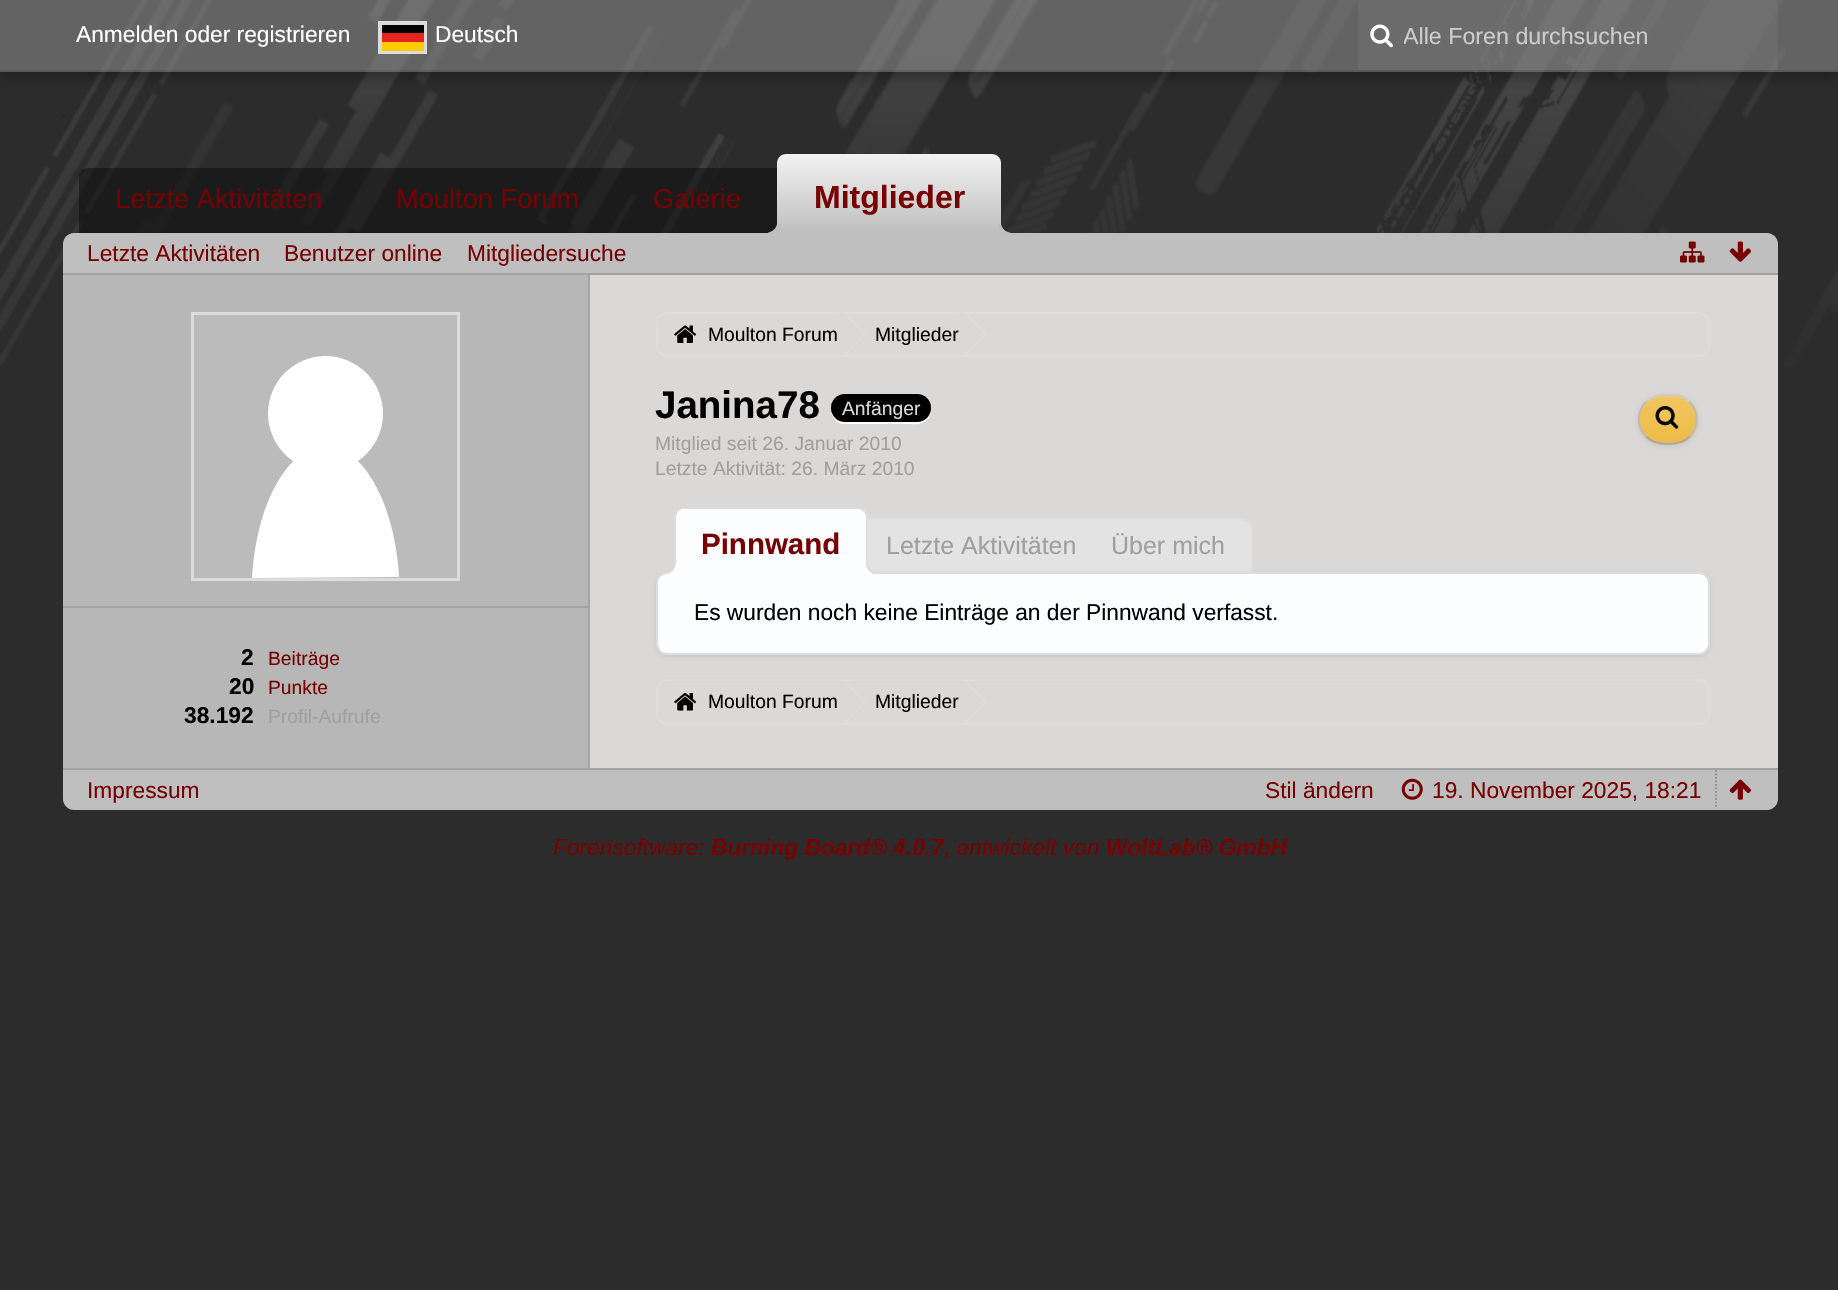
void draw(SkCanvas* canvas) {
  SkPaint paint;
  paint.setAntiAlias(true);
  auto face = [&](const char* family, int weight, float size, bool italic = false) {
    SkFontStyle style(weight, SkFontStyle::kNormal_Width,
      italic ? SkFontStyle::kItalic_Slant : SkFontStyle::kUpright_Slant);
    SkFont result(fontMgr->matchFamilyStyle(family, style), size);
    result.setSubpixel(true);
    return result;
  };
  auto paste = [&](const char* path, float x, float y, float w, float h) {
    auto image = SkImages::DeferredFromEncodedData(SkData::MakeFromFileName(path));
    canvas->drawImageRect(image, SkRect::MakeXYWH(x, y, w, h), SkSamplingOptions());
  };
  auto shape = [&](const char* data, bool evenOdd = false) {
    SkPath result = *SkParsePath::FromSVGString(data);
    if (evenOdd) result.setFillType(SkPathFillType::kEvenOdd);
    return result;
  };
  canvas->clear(0xff2c2c2c);
  paste("img/1.png", 0, 0, 1838, 366);
  canvas->save();
  canvas->clipPath(shape("M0 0H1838V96H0ZM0 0H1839V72H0Z", true), true);
  paint.setColor(0x4d000000);
  paint.setMaskFilter(SkMaskFilter::MakeBlur(kNormal_SkBlurStyle, 6));
  canvas->drawRect(SkRect::MakeXYWH(0, 5, 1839, 72), paint);
  paint.setMaskFilter(nullptr);
  canvas->restore();
  paint.setColor(0x809b9a9a);
  canvas->drawRect(SkRect::MakeXYWH(0, 0, 1838, 72), paint);
  paint.setColor(0x1a000000);
  canvas->drawRect(SkRect::MakeXYWH(0, 70, 1838, 2), paint);
  paint.setColor(0xffdbd8d8);
  canvas->drawRect(SkRect::MakeXYWH(379, 22, 47, 31), paint);
  paint.setStroke(true);
  paint.setStrokeWidth(2);
  paint.setColor(0xffdddddd);
  canvas->drawRect(SkRect::MakeXYWH(379, 22, 47, 31), paint);
  paint.setStroke(false);
  {
    const struct { float x, y, w, h; SkColor color; } items[] = {
      {382, 25, 42, 8, 0xff010202},
      {382, 33, 42, 9, 0xffe52420},
      {382, 42, 42, 9, 0xffffcc04},
      {1358, 0, 420, 70, 0x66757575},
    };
    for (auto [x, y, w, h, color] : items) {
      paint.setColor(color);
      canvas->drawRect(SkRect::MakeXYWH(x, y, w, h), paint);
    }
  }
  paste("img/2.png", 1370, 24, 23, 24);
  paste("img/3.png", 63, 115, 2, 2);
  paint.setColor(0x66000000);
  canvas->drawPath(shape("M88 168H992C997 168 1001 172 1001 177V233H79V177C79 172 83 168 88 168Z"), paint);
  {
    const SkColor colors[] = {0xfff2f2f2, 0xffbfbfbf};
    const float stops[] = {0, 1};
    const SkPoint ends[] = {{889, 154}, {889, 233}};
    paint.setShader(SkGradientShader::MakeLinear(ends, colors, stops, 2, SkTileMode::kClamp));
    paint.setAlpha(255);
  }
  canvas->drawPath(shape("M786 154H992C997 154 1001 158 1001 163V233H777V163C777 158 781 154 786 154Z"), paint);
  paint.setShader(nullptr);
  paint.setColor(0xffbfbfbf);
  canvas->drawPath(shape("M74 233H1767C1773 233 1778 238 1778 244V275H63V244C63 238 68 233 74 233Z"), paint);
  canvas->drawPath(shape("M768 232.5V236C776 236 781 232.5 781 224H777C776 228.5 772.5 232 768 232.5Z"), paint);
  canvas->drawPath(shape("M998 224C998 231.5 1002.5 236 1010 236V232.5C1005.5 232 1002 228.5 1001 224Z"), paint);
  paint.setColor(0xffa3a3a3);
  canvas->drawRect(SkRect::MakeXYWH(63, 273, 1715, 2), paint);
  paste("img/4.png", 1680, 241, 25, 22);
  paste("img/5.png", 1729, 241, 22, 21);
  {
    const struct { float x, y, w, h; SkColor color; } items[] = {
      {590, 275, 1188, 493, 0xffdbd8d8},
      {63, 275, 525, 493, 0xffb7b7b7},
      {588, 275, 2, 493, 0xffa3a3a3},
      {63, 606, 527, 2, 0xffa3a3a3},
    };
    for (auto [x, y, w, h, color] : items) {
      paint.setColor(color);
      canvas->drawRect(SkRect::MakeXYWH(x, y, w, h), paint);
    }
  }
  paint.setColor(0xffdbd8d8);
  canvas->drawRect(SkRect::MakeXYWH(192, 313, 267, 267), paint);
  paint.setStroke(true);
  paint.setColor(0xffdddddd);
  canvas->drawRect(SkRect::MakeXYWH(192, 313, 267, 267), paint);
  paint.setStroke(false);
  paint.setColor(0xffbbbbbb);
  canvas->drawRect(SkRect::MakeXYWH(194, 315, 263, 263), paint);
  paint.setColor(0xffffffff);
  canvas->drawPath(shape("M252 578C256 504 288 446 326 446C363 446 395 504 399 577"), paint);
  canvas->drawCircle(325.5f, 413.5f, 57.5f, paint);
  paint.setStroke(true);
  paint.setColor(0xffdddddd);
  canvas->drawRoundRect(SkRect::MakeXYWH(657, 313, 1052, 43), 10, 10, paint);
  paste("img/6.png", 674, 325, 23, 18);
  paint.setStroke(false);
  canvas->drawPath(shape("M845 313L866 334L845 355H840V313Z"), paint);
  paint.setColor(0xffdbd8d8);
  canvas->drawPath(shape("M843 313L864 334L843 355H838V313Z"), paint);
  paint.setColor(0xffdddddd);
  canvas->drawPath(shape("M966 313L987 334L966 355H961V313Z"), paint);
  paint.setColor(0xffdbd8d8);
  canvas->drawPath(shape("M964 313L985 334L964 355H959V313Z"), paint);
  paint.setColor(0xffffffff);
  canvas->drawPath(shape("M831 407C830 415 835 422 842 424H905C913 424 923 426 929 418C930 415 931 412 931 409C930 416 924 422 917 422H845C838 422 831 415 831 408Z"), paint);
  paint.setColor(0xff000000);
  canvas->drawRoundRect(SkRect::MakeXYWH(831, 394, 100, 28), 14, 14, paint);
  paint.setColor(0x33000000);
  canvas->drawPath(shape("M845 396H917C925 396 930 401 931 409V408C931 400 925 394 917 394H845C837 394 831 400 831 408V409C832 402 838 396 845 396Z"), paint);
  paint.setColor(0x1a000000);
  paint.setMaskFilter(SkMaskFilter::MakeBlur(kNormal_SkBlurStyle, 2.5f));
  canvas->drawRoundRect(SkRect::MakeXYWH(1638, 396, 60, 50), 25, 25, paint);
  paint.setMaskFilter(nullptr);
  canvas->save();
  canvas->clipPath(shape("M1663.5 394H1672.5C1686.5 394 1698 405.5 1698 419.5C1698 433.5 1686.5 445 1672.5 445H1663.5C1649.5 445 1638 433.5 1638 419.5C1638 405.5 1649.5 394 1663.5 394Z"), true);
  {
    const SkColor colors[] = {0xfff2cd76, 0xfff0c55e, 0xffeebc47};
    const float stops[] = {0, 0.07f, 1};
    const SkPoint ends[] = {{1668, 348}, {1668, 396}};
    paint.setShader(SkGradientShader::MakeLinear(ends, colors, stops, 3, SkTileMode::kClamp));
    paint.setAlpha(255);
  }
  canvas->drawRect(SkRect::MakeXYWH(1653, 394, 30, 2), paint);
  {
    const SkColor colors[] = {0xfff2cd76, 0xfff0c55e, 0xffeebc47};
    const float stops[] = {0, 0.07f, 1};
    const SkPoint ends[] = {{1668, 396}, {1668, 443}};
    paint.setShader(SkGradientShader::MakeLinear(ends, colors, stops, 3, SkTileMode::kClamp));
    paint.setAlpha(255);
  }
  canvas->drawRect(SkRect::MakeXYWH(1638, 396, 60, 47), paint);
  {
    const SkColor colors[] = {0xfff2cd76, 0xfff0c55e, 0xffeebc47};
    const float stops[] = {0, 0.07f, 1};
    const SkPoint ends[] = {{1668, 443}, {1668, 490}};
    paint.setShader(SkGradientShader::MakeLinear(ends, colors, stops, 3, SkTileMode::kClamp));
    paint.setAlpha(255);
  }
  canvas->drawRect(SkRect::MakeXYWH(1653, 443, 30, 2), paint);
  canvas->restore();
  paint.setStroke(true);
  paint.setStrokeWidth(1.8f);
  paint.setShader(nullptr);
  paint.setColor(0xffcdcdcd);
  canvas->drawPath(shape("M1646 402C1656 392 1679.5 392 1689.5 402"), paint);
  paint.setColor(0xffbbbbbb);
  canvas->drawPath(shape("M1689.5 402C1699 411 1699 427 1689.5 436.5"), paint);
  paint.setColor(0xffa9a9a9);
  canvas->drawPath(shape("M1689.5 436.5C1679.5 446.5 1656 446.5 1646 436.5"), paint);
  paint.setColor(0xffbbbbbb);
  canvas->drawPath(shape("M1646 436.5C1636.5 427 1636.5 411 1646 402"), paint);
  paste("img/7.png", 1655, 406, 24, 23);
  paint.setStroke(false);
  paint.setColor(0xffe4e3e3);
  canvas->drawPath(shape("M685 520H1242C1247 520 1251 524 1251 529V574H676V529C676 524 680 520 685 520Z"), paint);
  paint.setColor(0xffdddddd);
  canvas->drawPath(shape("M684 518H1242C1248 518 1253 523 1253 528V574H674V528C674 523 678 518 684 518ZM684 520H1242C1247 520 1251 524 1251 528V574H676V528C676 524 679 520 684 520Z", true), paint);
  paint.setColor(0x1a000000);
  paint.setMaskFilter(SkMaskFilter::MakeBlur(kNormal_SkBlurStyle, 2));
  canvas->drawRoundRect(SkRect::MakeXYWH(656, 574, 1054, 82), 11, 11, paint);
  paint.setMaskFilter(nullptr);
  paint.setColor(0xfffcfdfe);
  canvas->drawRoundRect(SkRect::MakeXYWH(657, 573, 1052, 81), 10, 10, paint);
  paint.setStroke(true);
  paint.setStrokeWidth(2);
  paint.setColor(0xffdddddd);
  canvas->drawRoundRect(SkRect::MakeXYWH(657, 573, 1052, 81), 10, 10, paint);
  paint.setStroke(false);
  paint.setColor(0xfffcfdfe);
  canvas->drawPath(shape("M685 508H857C863 508 868 513 868 519V574H674V519C674 513 679 508 685 508Z"), paint);
  paint.setColor(0xffdddddd);
  canvas->drawPath(shape("M684 508C681 508 679 509 677 511L678 512C679 510 681 509 684 509H858C860 509 862 510 864 512L865 511C863 509 860 508 858 508Z"), paint);
  canvas->drawPath(shape("M865 511C867 512 868 515 868 518V574L866 572V518C866 516 865 513 864 512Z"), paint);
  paint.setColor(0xfffcfdfe);
  canvas->drawPath(shape("M868 574L866 572H676L674 574Z"), paint);
  paint.setColor(0xffdddddd);
  canvas->drawPath(shape("M677 511C675 512 674 515 674 518V574L676 572V518C676 516 677 513 678 512Z"), paint);
  canvas->save();
  canvas->clipRect(SkRect::MakeXYWH(665, 564, 11, 10));
  paint.setColor(0xfffcfdfe);
  canvas->drawPath(shape("M669 573V576C675 576 679 571 679 565H675.5C675 568.5 672.5 572 669 573Z"), paint);
  canvas->restore();
  paint.setColor(0xffdddddd);
  canvas->drawPath(shape("M665 563.5H675.5C675.5 569.5 671 574 665 574ZM665 563.5H674C674 568.5 670 572 665 572Z", true), paint);
  canvas->save();
  canvas->clipRect(SkRect::MakeXYWH(866, 564, 11, 10));
  paint.setColor(0xfffcfdfe);
  canvas->drawPath(shape("M863 565C863 571 867 576 873 576V573.5C869.5 572 867 569 866.5 565Z"), paint);
  canvas->restore();
  paint.setColor(0xffdddddd);
  canvas->drawPath(shape("M866 563.5H877V574C871 574 866 569.5 866 563.5ZM868 563.5H877V572C872 572 868 568.5 868 563.5Z", true), paint);
  paint.setStroke(true);
  canvas->drawRoundRect(SkRect::MakeXYWH(657, 680, 1052, 44), 10, 10, paint);
  paste("img/8.png", 674, 693, 23, 18);
  paint.setStroke(false);
  canvas->drawPath(shape("M845 681L866 702L845 723H840V681Z"), paint);
  paint.setColor(0xffdbd8d8);
  canvas->drawPath(shape("M843 681L864 702L843 723H838V681Z"), paint);
  paint.setColor(0xffdddddd);
  canvas->drawPath(shape("M966 681L987 702L966 723H961V681Z"), paint);
  paint.setColor(0xffdbd8d8);
  canvas->drawPath(shape("M964 681L985 702L964 723H959V681Z"), paint);
  paint.setColor(0xffbfbfbf);
  canvas->drawPath(shape("M63 768H1778V799C1778 805 1773 810 1767 810H74C68 810 63 805 63 799Z"), paint);
  paint.setColor(0xffa3a3a3);
  canvas->drawRect(SkRect::MakeXYWH(63, 768, 1715, 2), paint);
  paint.setStroke(true);
  paint.setStrokeWidth(1.8f);
  paint.setColor(0xff8c8c8c);
  paint.setPathEffect(SkDashPathEffect::Make({{1.75f, 1.75f}}, 0));
  canvas->drawPath(shape("M1716 770V808.5"), paint);
  paint.setPathEffect(nullptr);
  paste("img/9.png", 1401, 778, 22, 22);
  paste("img/10.png", 1729, 779, 22, 21);
  auto f0 = face("Liberation Sans", 400, 22.75f);
  paint.setStroke(false);
  paint.setColor(0xffffffff);
  canvas->drawString("Anmelden oder registrieren", 76, 42, f0, paint);
  canvas->drawString("Deutsch", 435, 42, f0, paint);
  canvas->save();
  canvas->clipRect(SkRect::MakeXYWH(1404, 23, 330, 26));
  auto f1 = face("Liberation Sans", 400, 23.25f);
  paint.setColor(0xffcccccc);
  canvas->drawString("Alle Foren durchsuchen", 1403, 44, f1, paint);
  canvas->restore();
  auto f2 = face("Liberation Sans", 400, 27.25f);
  paint.setColor(0xff760002);
  {
    const struct { const char* s; float x, y; } items[] = {
      {"Letzte Aktivitäten", 115, 208},
      {"Moulton Forum", 396, 208},
      {"Galerie", 653, 208},
    };
    for (auto [s, x, y] : items) {
      canvas->drawString(s, x, y, f2, paint);
    }
  }
  auto f3 = face("Liberation Sans", 700, 32);
  canvas->drawString("Mitglieder", 814, 208, f3, paint);
  {
    const struct { const char* s; float x, y; } items[] = {
      {"Letzte Aktivitäten", 87, 261},
      {"Benutzer online", 284, 261},
      {"Mitgliedersuche", 467, 261},
    };
    for (auto [s, x, y] : items) {
      canvas->drawString(s, x, y, f0, paint);
    }
  }
  auto f4 = face("Liberation Sans", 700, 22.75f);
  paint.setColor(0xff000000);
  canvas->drawString("2", 241, 665, f4, paint);
  auto f5 = face("Liberation Sans", 400, 19.3f);
  paint.setColor(0xff760002);
  canvas->drawString("Beiträge", 268, 665, f5, paint);
  paint.setColor(0xff000000);
  canvas->drawString("20", 229, 694, f4, paint);
  paint.setColor(0xff760002);
  canvas->drawString("Punkte", 268, 694, f5, paint);
  paint.setColor(0xff000000);
  canvas->drawString("38.192", 184, 723, f4, paint);
  paint.setColor(0xffa09f9f);
  canvas->drawString("Profil-Aufrufe", 268, 723, f5, paint);
  paint.setColor(0xff000000);
  canvas->drawString("Moulton Forum", 708, 341, f5, paint);
  canvas->drawString("Mitglieder", 875, 341, f5, paint);
  auto f6 = face("Liberation Sans", 700, 38.5f);
  canvas->drawString("Janina78", 655, 418, f6, paint);
  paint.setColor(0xffdbd8d8);
  canvas->drawString("Anfänger", 842, 415, f5, paint);
  paint.setColor(0xffa09f9f);
  canvas->drawString("Mitglied seit 26. Januar 2010", 655, 450, f5, paint);
  canvas->drawString("Letzte Aktivität: 26. März 2010", 655, 475, f5, paint);
  auto f7 = face("Liberation Sans", 700, 29.5f);
  paint.setColor(0xff760002);
  canvas->drawString("Pinnwand", 701, 554, f7, paint);
  auto f8 = face("Liberation Sans", 400, 25);
  paint.setColor(0xffa09f9f);
  canvas->drawString("Letzte Aktivitäten", 886, 554, f8, paint);
  canvas->drawString("Über mich", 1111, 554, f8, paint);
  paint.setColor(0xff000000);
  canvas->drawString("Es wurden noch keine Einträge an der Pinnwand verfasst.", 694, 620, f0, paint);
  canvas->drawString("Moulton Forum", 708, 708, f5, paint);
  canvas->drawString("Mitglieder", 875, 708, f5, paint);
  paint.setColor(0xff760002);
  {
    const struct { const char* s; float x, y; } items[] = {
      {"Impressum", 87, 798},
      {"Stil ändern", 1265, 798},
      {"19. November 2025, 18:21", 1432, 798},
    };
    for (auto [s, x, y] : items) {
      canvas->drawString(s, x, y, f0, paint);
    }
  }
  auto f9 = face("Liberation Sans", 400, 22.75f, true);
  canvas->drawString("Forensoftware:", 553, 855, f9, paint);
  auto f10 = face("Liberation Sans", 700, 22.75f, true);
  canvas->drawString("Burning Board® 4.0.7", 711, 855, f10, paint);
  canvas->drawString(", entwickelt von", 944, 855, f9, paint);
  canvas->drawString("WoltLab® GmbH", 1106, 855, f10, paint);
}
